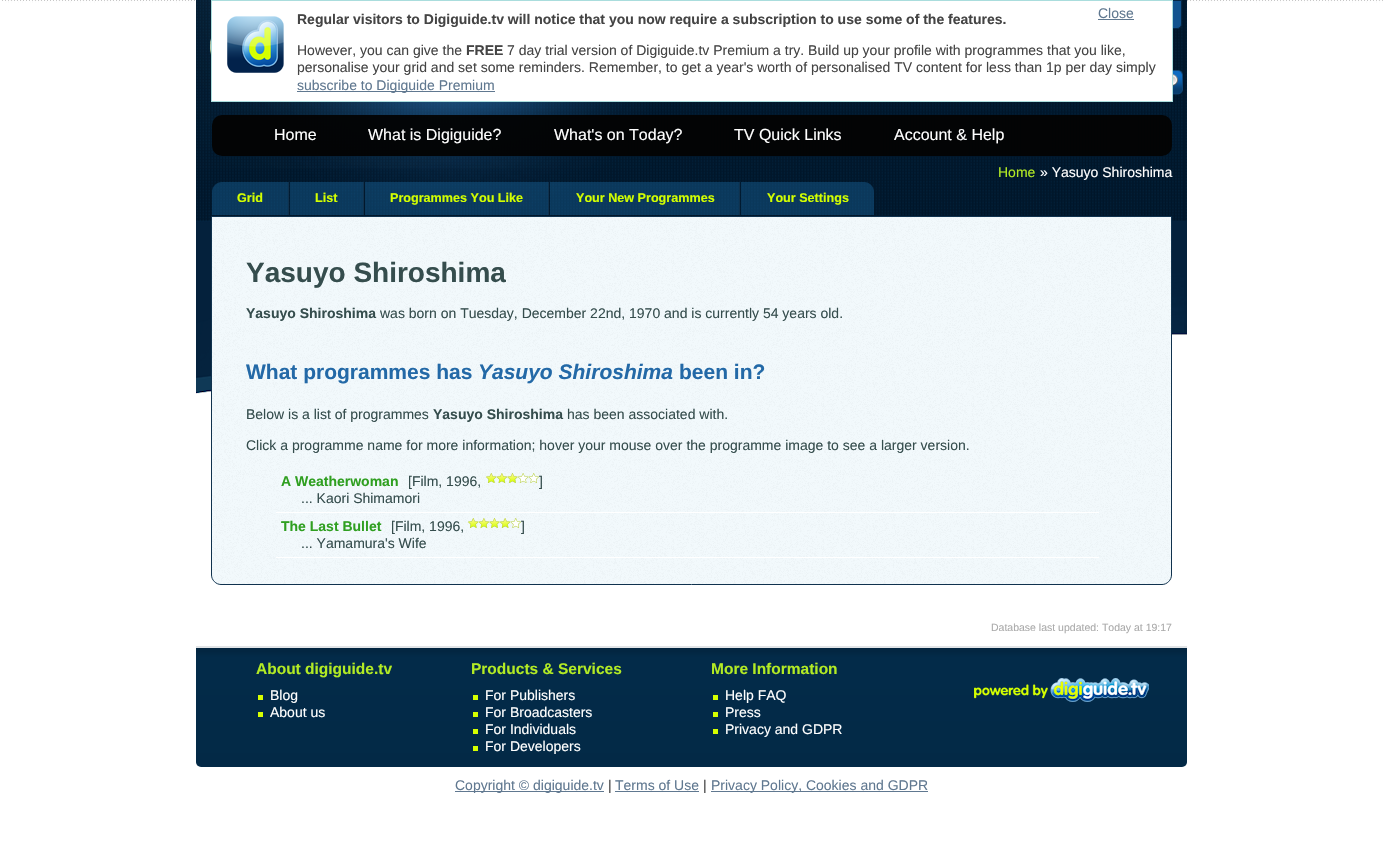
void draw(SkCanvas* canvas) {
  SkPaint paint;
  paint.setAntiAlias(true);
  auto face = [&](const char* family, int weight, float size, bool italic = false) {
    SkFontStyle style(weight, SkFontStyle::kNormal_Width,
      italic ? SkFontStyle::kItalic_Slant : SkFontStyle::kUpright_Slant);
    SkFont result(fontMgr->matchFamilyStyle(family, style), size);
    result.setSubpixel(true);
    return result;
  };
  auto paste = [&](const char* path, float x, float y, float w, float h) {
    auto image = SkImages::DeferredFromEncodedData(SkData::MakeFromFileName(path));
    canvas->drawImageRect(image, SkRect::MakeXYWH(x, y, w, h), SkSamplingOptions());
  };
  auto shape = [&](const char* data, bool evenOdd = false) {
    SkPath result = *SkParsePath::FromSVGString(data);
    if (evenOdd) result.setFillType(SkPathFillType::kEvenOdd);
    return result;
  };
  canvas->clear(0xffffffff);
  paste("img/1.png", 2, 0, 1381, 3);
  paint.setColor(0xffffffff);
  canvas->drawPath(shape("M196 0H1187V762C1187 765 1185 767 1182 767H201C198 767 196 765 196 762Z"), paint);
  paste("img/2.png", 1184, 0, 3, 335);
  paste("img/3.png", 196, 0, 988, 394);
  paint.setColor(0xff11538f);
  canvas->drawPath(shape("M1119.5 .5H1181.5V24C1181.5 26.5 1179.5 28.5 1177 28.5H1124C1121.5 28.5 1119.5 26.5 1119.5 24Z"), paint);
  paint.setStroke(true);
  paint.setStrokeWidth(1);
  paint.setColor(0xff062644);
  canvas->drawPath(shape("M1119.5 .5H1181.5V24C1181.5 26.5 1179.5 28.5 1177 28.5H1124C1121.5 28.5 1119.5 26.5 1119.5 24Z"), paint);
  paint.setStroke(false);
  paint.setColor(0xffffffff);
  canvas->drawRect(SkRect::MakeXYWH(211.5f, 0.5f, 961, 101), paint);
  paint.setStroke(true);
  paint.setColor(0xffaadddd);
  canvas->drawRect(SkRect::MakeXYWH(211.5f, 0.5f, 961, 101), paint);
  paste("img/4.png", 227, 16, 57, 57);
  paint.setStroke(false);
  paint.setColor(0xff607890);
  canvas->drawRect(SkRect::MakeXYWH(1098, 19, 36, 1), paint);
  canvas->drawRect(SkRect::MakeXYWH(297, 91, 198, 1), paint);
  paint.setColor(0x661869a3);
  canvas->drawPath(shape("M222 182H289V215H212V192C212 186.5 216.5 182 222 182Z"), paint);
  {
    const struct { float x, y, w, h; SkColor color; } items[] = {
      {288, 182, 1, 33, 0xff10324e},
      {290, 182, 73, 33, 0x661869a3},
      {363, 182, 1, 33, 0xff10324e},
      {365, 182, 183, 33, 0x661869a3},
      {548, 182, 1, 33, 0xff10324e},
      {550, 182, 189, 33, 0x661869a3},
      {739, 182, 1, 33, 0xff10324e},
    };
    for (auto [x, y, w, h, color] : items) {
      paint.setColor(color);
      canvas->drawRect(SkRect::MakeXYWH(x, y, w, h), paint);
    }
  }
  paint.setColor(0x661869a3);
  canvas->drawPath(shape("M741 182H864C869.5 182 874 186.5 874 192V215H741Z"), paint);
  paste("img/5.png", 211, 217, 961, 368);
  paint.setStroke(true);
  paint.setColor(0xff10324e);
  canvas->drawPath(shape("M211.5 216.5H1171.5V575C1171.5 580 1167 584.5 1162 584.5H221C216 584.5 211.5 580 211.5 575Z"), paint);
  paint.setStroke(false);
  paint.setColor(0xffffffff);
  canvas->drawRect(SkRect::MakeXYWH(276, 512, 823, 1), paint);
  paste("img/6.png", 486, 473, 53, 10);
  canvas->drawRect(SkRect::MakeXYWH(276, 557, 823, 1), paint);
  paste("img/7.png", 468, 518, 53, 10);
  paste("img/8.png", 210, 38, 1, 17);
  paste("img/9.png", 1173, 70, 10, 25);
  paint.setColor(0xf2020202);
  canvas->drawRoundRect(SkRect::MakeXYWH(212, 115, 960, 41), 10, 10, paint);
  paste("img/10.png", 196, 646, 991, 121);
  {
    const struct { float x, y, w, h; SkColor color; } items[] = {
      {258, 695, 5, 5, 0xffd7ff00},
      {258, 712, 5, 5, 0xffd7ff00},
      {473, 695, 5, 5, 0xffd7ff00},
      {473, 712, 5, 5, 0xffd7ff00},
      {473, 729, 5, 5, 0xffd7ff00},
      {473, 746, 5, 5, 0xffd7ff00},
      {713, 695, 5, 5, 0xffd7ff00},
      {713, 712, 5, 5, 0xffd7ff00},
      {713, 729, 5, 5, 0xffd7ff00},
    };
    for (auto [x, y, w, h, color] : items) {
      paint.setColor(color);
      canvas->drawRect(SkRect::MakeXYWH(x, y, w, h), paint);
    }
  }
  paste("img/11.png", 974, 678, 175, 24);
  {
    const struct { float x, y, w, h; SkColor color; } items[] = {
      {455, 791, 149, 1, 0xff607890},
      {615, 791, 84, 1, 0xff607890},
      {711, 791, 217, 1, 0xff607890},
    };
    for (auto [x, y, w, h, color] : items) {
      paint.setColor(color);
      canvas->drawRect(SkRect::MakeXYWH(x, y, w, h), paint);
    }
  }
  auto f0 = face("Liberation Sans", 700, 14);
  paint.setColor(0xff444444);
  canvas->drawString("Regular visitors to Digiguide.tv will notice that you now require a subscription to use some of the features.", 297, 24, f0, paint);
  auto f1 = face("Liberation Sans", 400, 14);
  paint.setColor(0xff607890);
  canvas->drawString("Close", 1098, 18, f1, paint);
  paint.setColor(0xff444444);
  canvas->drawString("However, you can give the", 297, 55, f1, paint);
  canvas->drawString("FREE", 466, 55, f0, paint);
  canvas->drawString("7 day trial version of Digiguide.tv Premium a try. Build up your profile with programmes that you like,", 507, 55, f1, paint);
  canvas->drawString("personalise your grid and set some reminders. Remember, to get a year's worth of personalised TV content for less than 1p per day simply", 297, 72, f1, paint);
  paint.setColor(0xff607890);
  canvas->drawString("subscribe to Digiguide Premium", 297, 90, f1, paint);
  paint.setColor(0xffb3eb24);
  canvas->drawString("Home", 998, 177, f1, paint);
  paint.setColor(0xffffffff);
  canvas->drawString("» Yasuyo Shiroshima", 1040, 177, f1, paint);
  auto f2 = face("Liberation Sans", 700, 12.6f);
  paint.setColor(0xffd3ff00);
  {
    const struct { const char* s; float x, y; } items[] = {
      {"Grid", 237, 202},
      {"List", 315, 202},
      {"Programmes You Like", 390, 202},
      {"Your New Programmes", 576, 202},
      {"Your Settings", 767, 202},
    };
    for (auto [s, x, y] : items) {
      canvas->drawString(s, x, y, f2, paint);
    }
  }
  auto f3 = face("Liberation Sans", 700, 28);
  paint.setColor(0xff354d4d);
  canvas->drawString("Yasuyo Shiroshima", 246, 282, f3, paint);
  canvas->drawString("Yasuyo Shiroshima", 246, 318, f0, paint);
  canvas->drawString("was born on Tuesday, December 22nd, 1970 and is currently 54 years old.", 380, 318, f1, paint);
  auto f4 = face("Liberation Sans", 700, 21);
  paint.setColor(0xff2369a7);
  canvas->drawString("What programmes has", 246, 379, f4, paint);
  auto f5 = face("Liberation Sans", 700, 21, true);
  canvas->drawString("Yasuyo Shiroshima", 478, 379, f5, paint);
  canvas->drawString("been in?", 679, 379, f4, paint);
  paint.setColor(0xff354d4d);
  canvas->drawString("Below is a list of programmes", 246, 419, f1, paint);
  canvas->drawString("Yasuyo Shiroshima", 433, 419, f0, paint);
  canvas->drawString("has been associated with.", 567, 419, f1, paint);
  canvas->drawString("Click a programme name for more information; hover your mouse over the programme image to see a larger version.", 246, 450, f1, paint);
  paint.setColor(0xff2f9f20);
  canvas->drawString("A Weatherwoman", 281, 486, f0, paint);
  paint.setColor(0xff354d4d);
  {
    const struct { const char* s; float x, y; } items[] = {
      {"[Film, 1996,", 408, 486},
      {"]", 539, 486},
      {"... Kaori Shimamori", 301, 503},
    };
    for (auto [s, x, y] : items) {
      canvas->drawString(s, x, y, f1, paint);
    }
  }
  paint.setColor(0xff2f9f20);
  canvas->drawString("The Last Bullet", 281, 531, f0, paint);
  paint.setColor(0xff354d4d);
  {
    const struct { const char* s; float x, y; } items[] = {
      {"[Film, 1996,", 391, 531},
      {"]", 521, 531},
      {"... Yamamura's Wife", 301, 548},
    };
    for (auto [s, x, y] : items) {
      canvas->drawString(s, x, y, f1, paint);
    }
  }
  auto f6 = face("Liberation Sans", 400, 10.5f);
  paint.setColor(0xffaaaaaa);
  canvas->drawString("Database last updated: Today at 19:17", 991, 631, f6, paint);
  auto f7 = face("Liberation Sans", 400, 16);
  paint.setColor(0xffffffff);
  {
    const struct { const char* s; float x, y; } items[] = {
      {"Home", 274, 140},
      {"What is Digiguide?", 368, 140},
      {"What's on Today?", 554, 140},
      {"TV Quick Links", 734, 140},
      {"Account & Help", 894, 140},
    };
    for (auto [s, x, y] : items) {
      canvas->drawString(s, x, y, f7, paint);
    }
  }
  auto f8 = face("Liberation Sans", 700, 15.5f);
  paint.setColor(0xffb3eb24);
  canvas->drawString("About digiguide.tv", 256, 674, f8, paint);
  paint.setColor(0xffffffff);
  canvas->drawString("Blog", 270, 700, f1, paint);
  canvas->drawString("About us", 270, 717, f1, paint);
  paint.setColor(0xffb3eb24);
  canvas->drawString("Products & Services", 471, 674, f8, paint);
  paint.setColor(0xffffffff);
  {
    const struct { const char* s; float x, y; } items[] = {
      {"For Publishers", 485, 700},
      {"For Broadcasters", 485, 717},
      {"For Individuals", 485, 734},
      {"For Developers", 485, 751},
    };
    for (auto [s, x, y] : items) {
      canvas->drawString(s, x, y, f1, paint);
    }
  }
  paint.setColor(0xffb3eb24);
  canvas->drawString("More Information", 711, 674, f8, paint);
  paint.setColor(0xffffffff);
  {
    const struct { const char* s; float x, y; } items[] = {
      {"Help FAQ", 725, 700},
      {"Press", 725, 717},
      {"Privacy and GDPR", 725, 734},
    };
    for (auto [s, x, y] : items) {
      canvas->drawString(s, x, y, f1, paint);
    }
  }
  paint.setColor(0xff607890);
  canvas->drawString("Copyright © digiguide.tv", 455, 790, f1, paint);
  paint.setColor(0xff444444);
  canvas->drawString("|", 608, 790, f1, paint);
  paint.setColor(0xff607890);
  canvas->drawString("Terms of Use", 615, 790, f1, paint);
  paint.setColor(0xff444444);
  canvas->drawString("|", 703, 790, f1, paint);
  paint.setColor(0xff607890);
  canvas->drawString("Privacy Policy, Cookies and GDPR", 711, 790, f1, paint);
}
